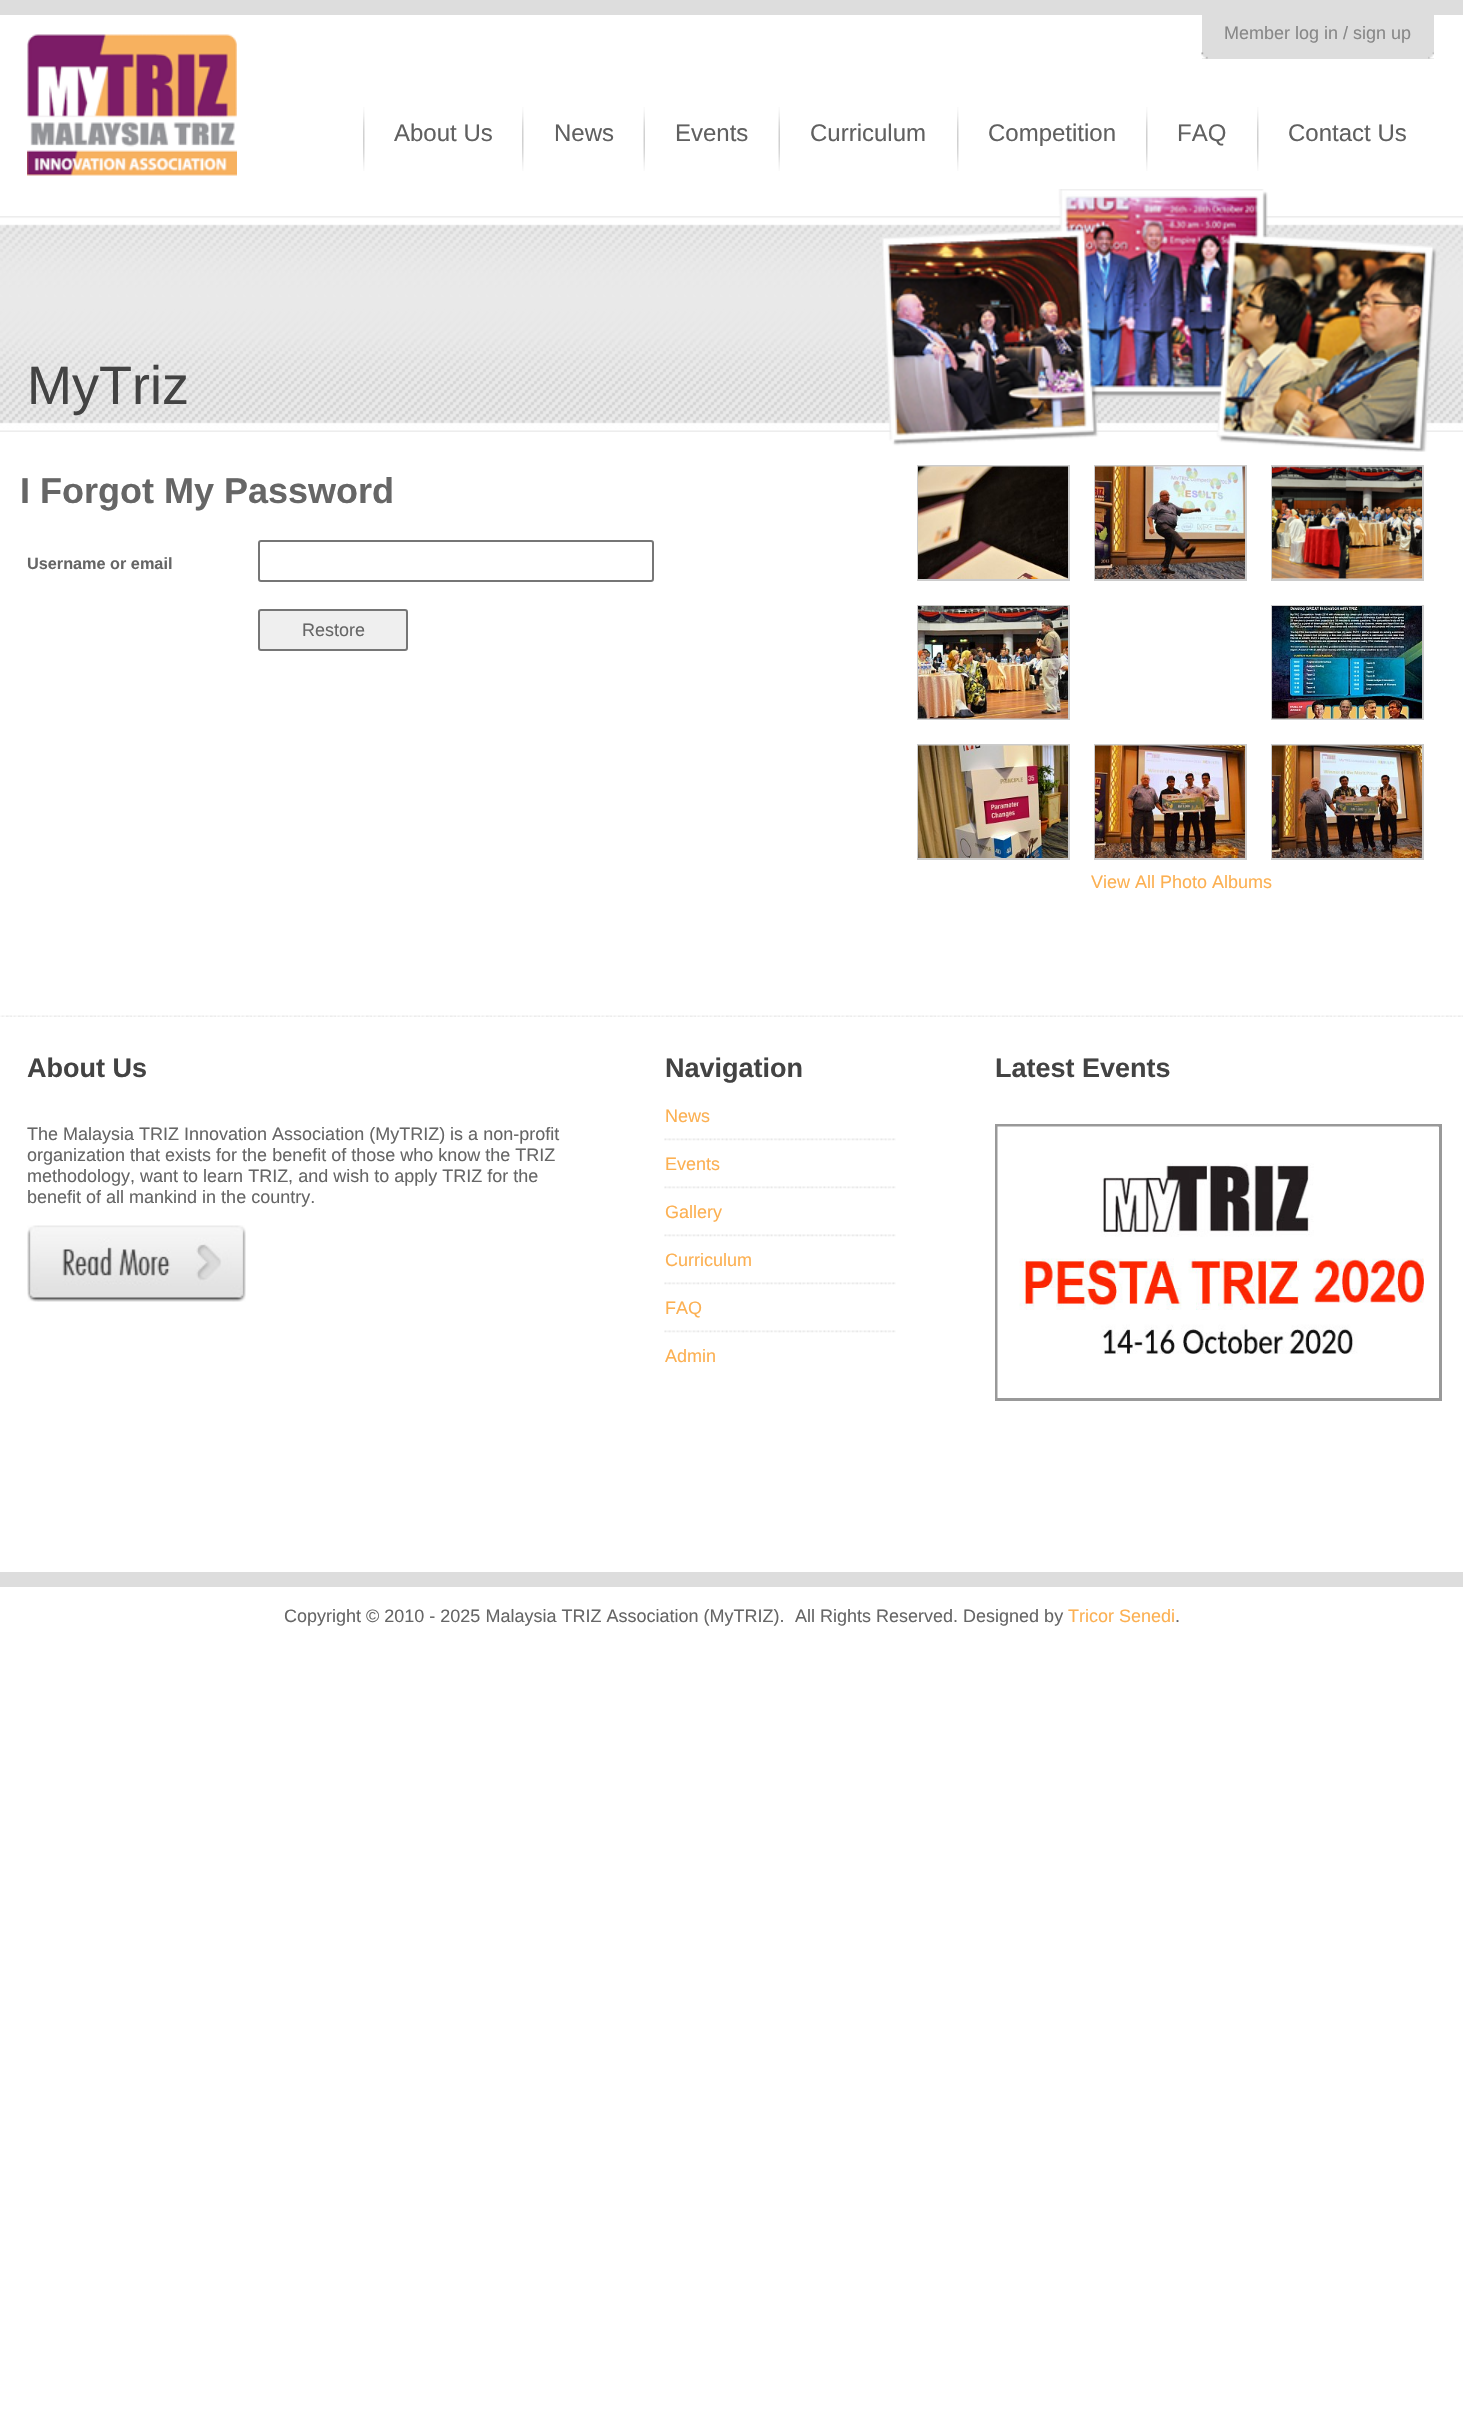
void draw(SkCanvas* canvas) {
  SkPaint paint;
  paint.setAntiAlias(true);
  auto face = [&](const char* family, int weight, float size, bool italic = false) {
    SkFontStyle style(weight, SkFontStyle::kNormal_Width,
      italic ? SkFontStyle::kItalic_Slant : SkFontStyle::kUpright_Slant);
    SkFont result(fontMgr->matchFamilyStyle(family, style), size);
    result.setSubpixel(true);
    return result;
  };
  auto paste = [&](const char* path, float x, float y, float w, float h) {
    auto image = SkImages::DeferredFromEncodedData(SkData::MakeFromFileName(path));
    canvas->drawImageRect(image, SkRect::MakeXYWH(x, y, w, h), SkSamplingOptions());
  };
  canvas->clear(0xffffffff);
  paint.setColor(0xffdddddd);
  canvas->drawRect(SkRect::MakeXYWH(0, 0, 1463, 15), paint);
  canvas->drawRect(SkRect::MakeXYWH(1202, 15, 232, 44), paint);
  paste("img/1.png", 1201, 52, 7, 7);
  paste("img/2.png", 1428, 52, 6, 7);
  paste("img/3.png", 27, 34, 210, 142);
  paste("img/4.png", 363, 107, 2, 64);
  paste("img/4.png", 522, 107, 2, 64);
  paste("img/5.png", 643, 107, 2, 64);
  paste("img/5.png", 778, 107, 2, 64);
  paste("img/4.png", 957, 107, 2, 64);
  paste("img/4.png", 1146, 107, 2, 64);
  paste("img/4.png", 1257, 107, 2, 64);
  paste("img/6.png", 0, 216, 1463, 216);
  paste("img/7.png", 882, 189, 555, 263);
  paint.setStroke(true);
  paint.setStrokeWidth(2);
  paint.setColor(0xff767676);
  canvas->drawRoundRect(SkRect::MakeXYWH(259, 541, 394, 40), 2, 2, paint);
  paint.setStroke(false);
  paint.setColor(0xffefefef);
  canvas->drawRoundRect(SkRect::MakeXYWH(259, 610, 148, 40), 2, 2, paint);
  paint.setStroke(true);
  paint.setColor(0xff767676);
  canvas->drawRoundRect(SkRect::MakeXYWH(259, 610, 148, 40), 2, 2, paint);
  paint.setColor(0xffcccccc);
  canvas->drawRect(SkRect::MakeXYWH(918, 466, 151, 114), paint);
  paste("img/8.png", 918, 466, 150, 113);
  canvas->drawRect(SkRect::MakeXYWH(1095, 466, 151, 114), paint);
  paste("img/9.png", 1095, 466, 150, 113);
  canvas->drawRect(SkRect::MakeXYWH(1272, 466, 151, 114), paint);
  paste("img/10.png", 1272, 466, 150, 113);
  canvas->drawRect(SkRect::MakeXYWH(918, 606, 151, 113), paint);
  paste("img/11.png", 918, 606, 150, 113);
  canvas->drawRect(SkRect::MakeXYWH(1272, 606, 151, 113), paint);
  paste("img/12.png", 1272, 606, 150, 113);
  canvas->drawRect(SkRect::MakeXYWH(918, 745, 151, 114), paint);
  paste("img/13.png", 918, 745, 150, 113);
  canvas->drawRect(SkRect::MakeXYWH(1095, 745, 151, 114), paint);
  paste("img/14.png", 1095, 745, 150, 113);
  canvas->drawRect(SkRect::MakeXYWH(1272, 745, 151, 114), paint);
  paste("img/15.png", 1272, 745, 150, 113);
  paste("img/16.png", 0, 1015, 1463, 2);
  paste("img/17.png", 27, 1225, 219, 77);
  paste("img/18.png", 664, 1138, 232, 3);
  paste("img/18.png", 664, 1186, 232, 3);
  paste("img/18.png", 664, 1234, 232, 3);
  paste("img/18.png", 664, 1282, 232, 3);
  paste("img/18.png", 664, 1330, 232, 3);
  paint.setStrokeWidth(3);
  paint.setColor(0xff999999);
  canvas->drawRect(SkRect::MakeXYWH(996.5f, 1125.5f, 444, 274), paint);
  paste("img/19.png", 997, 1126, 442, 272);
  paint.setStroke(false);
  paint.setColor(0xffdddddd);
  canvas->drawRect(SkRect::MakeXYWH(0, 1572, 1463, 15), paint);
  auto f0 = face("Liberation Sans", 400, 18);
  paint.setColor(0xff888888);
  canvas->drawString("Member log in / sign up", 1224, 39, f0, paint);
  auto f1 = face("Liberation Sans", 400, 24);
  paint.setColor(0xff606060);
  {
    const struct { const char* s; float x, y; } items[] = {
      {"About Us", 394, 141},
      {"News", 554, 141},
      {"Events", 675, 141},
      {"Curriculum", 810, 141},
      {"Competition", 988, 141},
      {"FAQ", 1177, 141},
      {"Contact Us", 1288, 141},
    };
    for (auto [s, x, y] : items) {
      canvas->drawString(s, x, y, f1, paint);
    }
  }
  auto f2 = face("Liberation Sans", 400, 54);
  paint.setColor(0xff434343);
  canvas->drawString("MyTriz", 27, 404, f2, paint);
  auto f3 = face("Liberation Sans", 700, 36);
  paint.setColor(0xff666666);
  canvas->drawString("I Forgot My Password", 20, 503, f3, paint);
  auto f4 = face("Liberation Sans", 700, 16.25f);
  canvas->drawString("Username or email", 27, 569, f4, paint);
  canvas->drawString("Restore", 302, 636, f0, paint);
  paint.setColor(0xfffcb052);
  canvas->drawString("View All Photo Albums", 1091, 888, f0, paint);
  auto f5 = face("Liberation Sans", 700, 27);
  paint.setColor(0xff434343);
  canvas->drawString("About Us", 27, 1077, f5, paint);
  paint.setColor(0xff666666);
  {
    const struct { const char* s; float x, y; } items[] = {
      {"The Malaysia TRIZ Innovation Association (MyTRIZ) is a non-profit", 27, 1140},
      {"organization that exists for the benefit of those who know the TRIZ", 27, 1161},
      {"methodology, want to learn TRIZ, and wish to apply TRIZ for the", 27, 1182},
      {"benefit of all mankind in the country.", 27, 1203},
    };
    for (auto [s, x, y] : items) {
      canvas->drawString(s, x, y, f0, paint);
    }
  }
  paint.setColor(0xff434343);
  canvas->drawString("Navigation", 665, 1077, f5, paint);
  paint.setColor(0xfffcb052);
  {
    const struct { const char* s; float x, y; } items[] = {
      {"News", 665, 1122},
      {"Events", 665, 1170},
      {"Gallery", 665, 1218},
      {"Curriculum", 665, 1266},
      {"FAQ", 665, 1314},
      {"Admin", 665, 1362},
    };
    for (auto [s, x, y] : items) {
      canvas->drawString(s, x, y, f0, paint);
    }
  }
  paint.setColor(0xff434343);
  canvas->drawString("Latest Events", 995, 1077, f5, paint);
  paint.setColor(0xff666666);
  canvas->drawString("Copyright © 2010 - 2025 Malaysia TRIZ Association (MyTRIZ).", 284, 1622, f0, paint);
  canvas->drawString("All Rights Reserved. Designed by", 795, 1622, f0, paint);
  paint.setColor(0xfffcb052);
  canvas->drawString("Tricor Senedi", 1068, 1622, f0, paint);
  paint.setColor(0xff666666);
  canvas->drawString(".", 1175, 1622, f0, paint);
}
